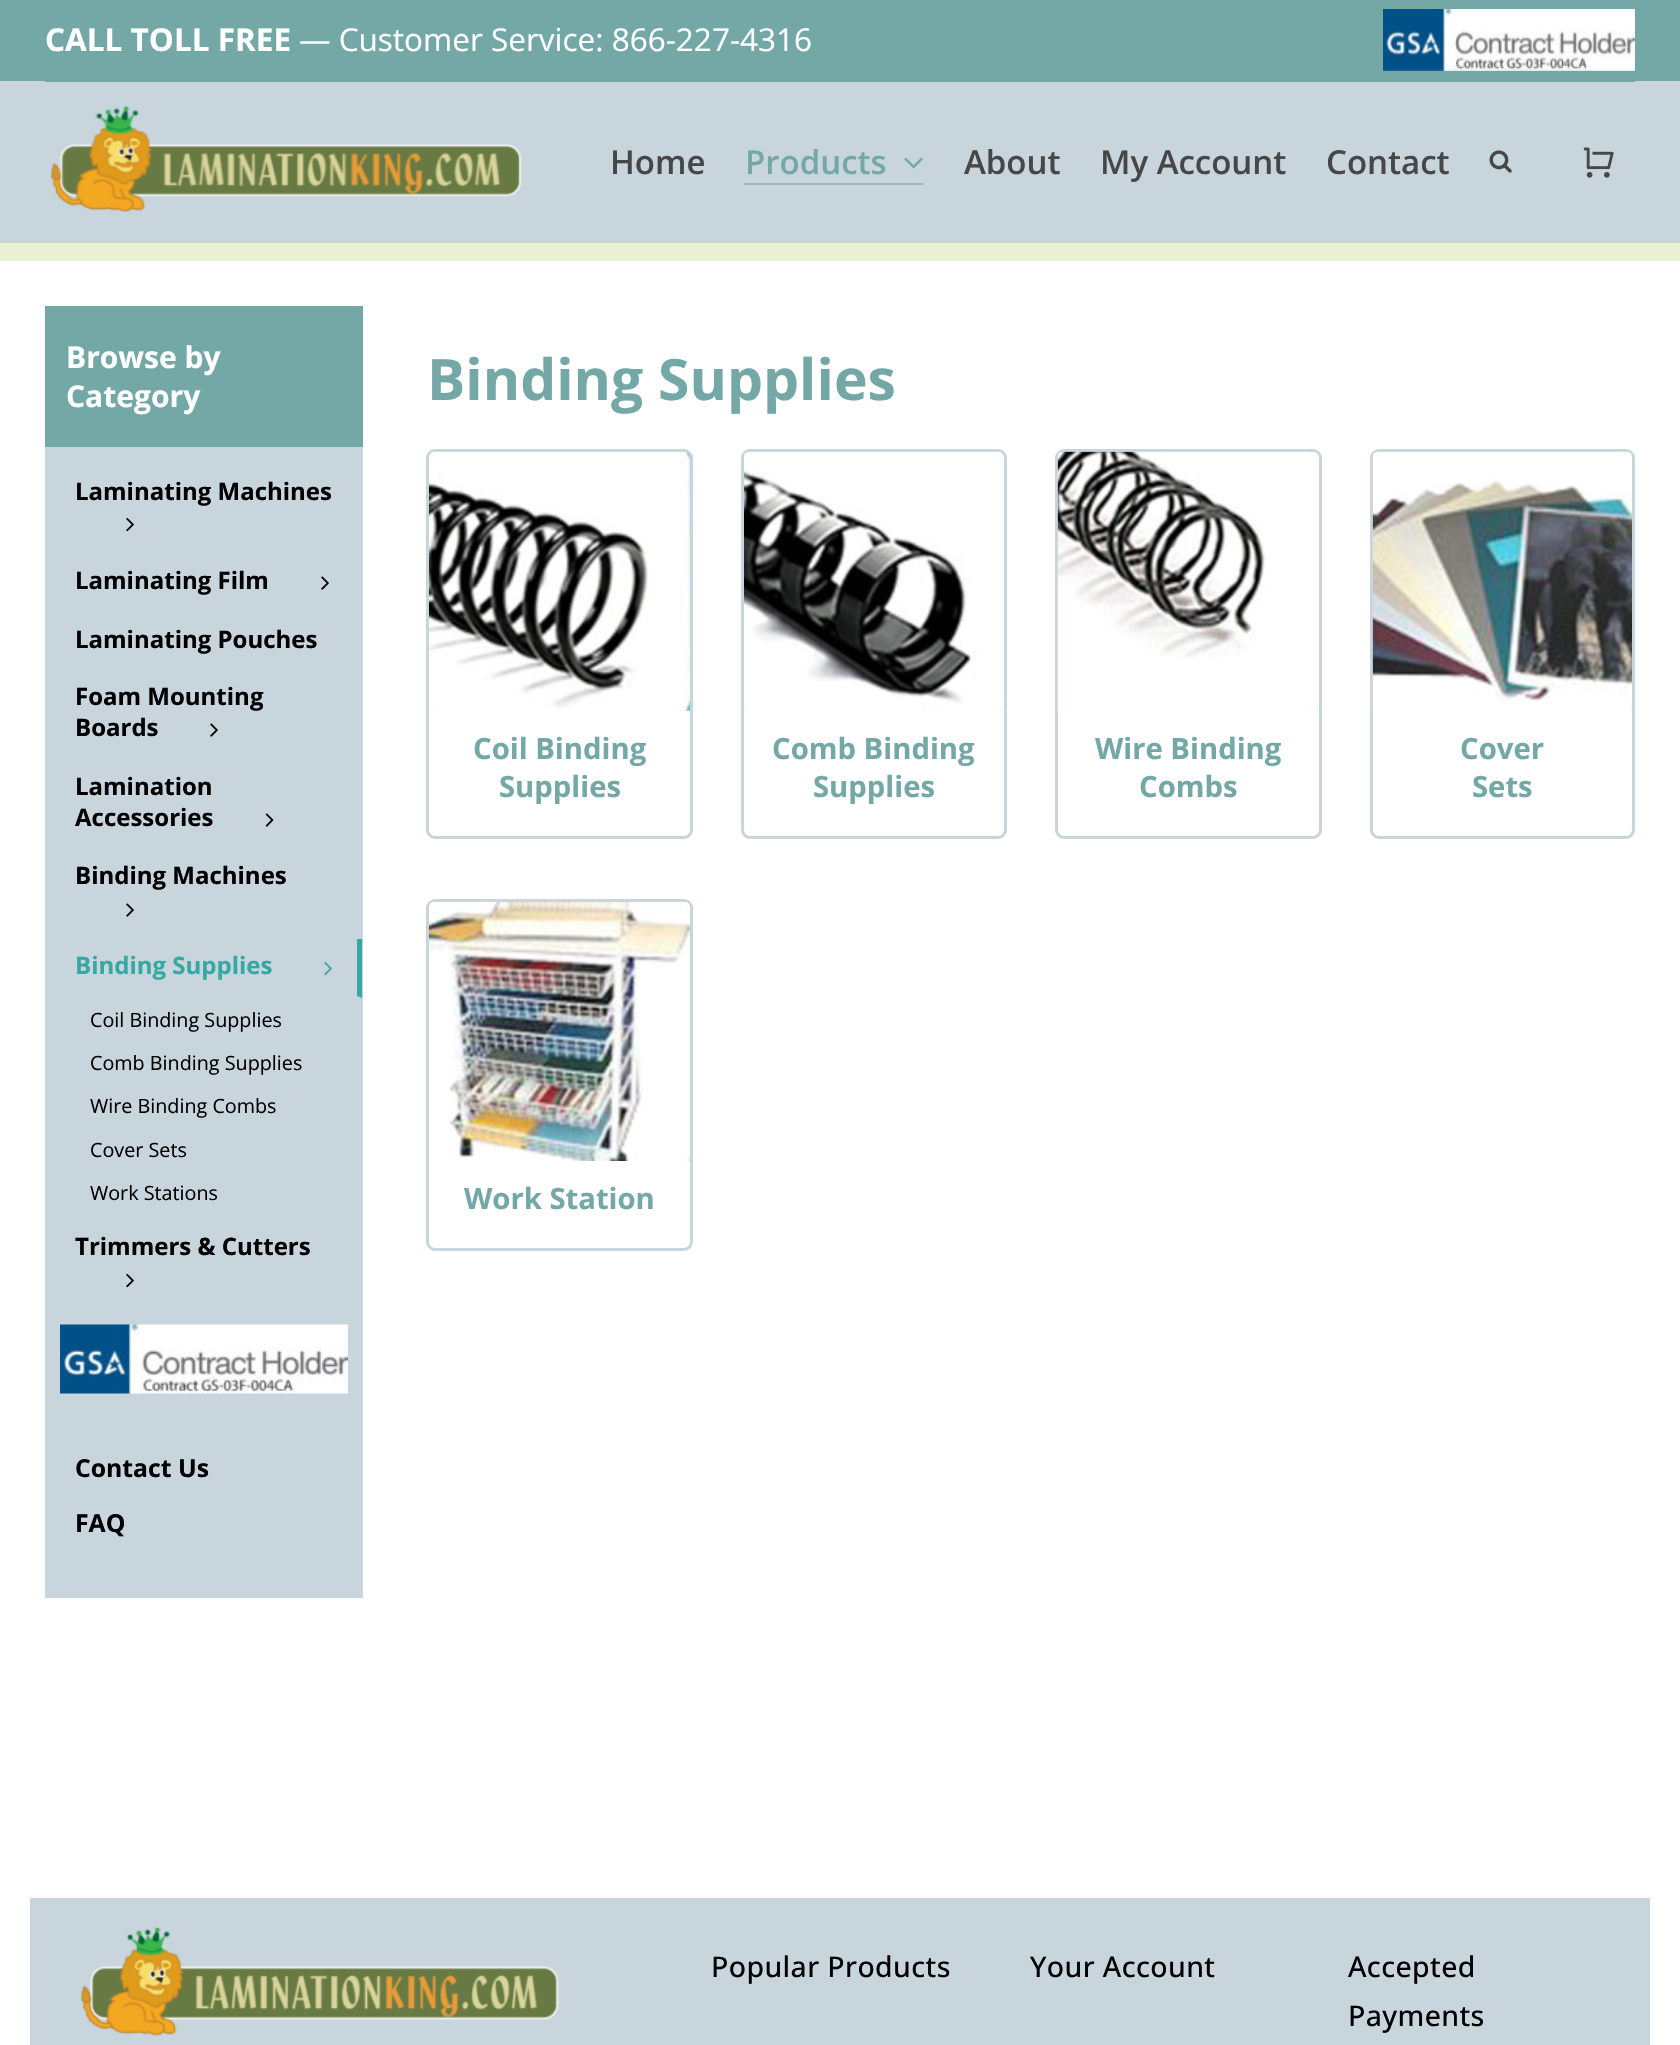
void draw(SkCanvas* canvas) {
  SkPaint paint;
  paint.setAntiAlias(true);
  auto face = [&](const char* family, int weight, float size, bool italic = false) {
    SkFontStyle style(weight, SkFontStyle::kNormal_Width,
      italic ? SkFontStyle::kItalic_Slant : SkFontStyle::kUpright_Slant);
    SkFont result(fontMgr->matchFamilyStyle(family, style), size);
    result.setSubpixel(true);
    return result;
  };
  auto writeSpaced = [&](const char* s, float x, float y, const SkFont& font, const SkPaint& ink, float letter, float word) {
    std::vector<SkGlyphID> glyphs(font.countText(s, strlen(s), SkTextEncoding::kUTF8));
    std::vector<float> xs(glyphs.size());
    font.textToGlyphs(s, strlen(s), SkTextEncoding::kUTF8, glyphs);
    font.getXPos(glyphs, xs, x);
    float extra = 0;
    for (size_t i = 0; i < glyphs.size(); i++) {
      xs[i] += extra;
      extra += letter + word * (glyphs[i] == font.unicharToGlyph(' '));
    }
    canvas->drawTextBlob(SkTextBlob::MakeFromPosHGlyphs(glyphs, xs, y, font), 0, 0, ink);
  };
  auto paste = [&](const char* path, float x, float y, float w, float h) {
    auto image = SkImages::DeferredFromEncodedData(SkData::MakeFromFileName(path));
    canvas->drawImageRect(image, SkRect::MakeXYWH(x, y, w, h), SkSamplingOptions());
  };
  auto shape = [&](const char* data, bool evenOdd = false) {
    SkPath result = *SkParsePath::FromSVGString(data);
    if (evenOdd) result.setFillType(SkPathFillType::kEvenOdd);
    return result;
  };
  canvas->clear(0xffffffff);
  paint.setColor(0xff74a8a6);
  canvas->drawRect(SkRect::MakeXYWH(0, 0, 1680, 81), paint);
  paste("img/1.png", 1383, 9, 252, 62);
  {
    const struct { float x, y, w, h; SkColor color; } items[] = {
      {0, 81, 1680, 162, 0xffc8d5dd},
      {45, 81, 1590, 1, 0xff74a8a6},
      {0, 243, 1680, 18, 0xffe8f1d2},
    };
    for (auto [x, y, w, h, color] : items) {
      paint.setColor(color);
      canvas->drawRect(SkRect::MakeXYWH(x, y, w, h), paint);
    }
  }
  paste("img/2.png", 50, 106, 472, 106);
  paste("img/3.png", 904, 157, 19, 12);
  paint.setColor(0xffa8b2b8);
  canvas->drawRect(SkRect::MakeXYWH(744, 183, 180, 2), paint);
  paste("img/4.png", 1489, 150, 23, 23);
  paste("img/5.png", 1583, 147, 31, 31);
  paint.setColor(0xffc8d5dd);
  canvas->drawRect(SkRect::MakeXYWH(45, 447, 318, 1151), paint);
  paint.setColor(0xff74a8a6);
  canvas->drawRect(SkRect::MakeXYWH(45, 306, 318, 141), paint);
  paste("img/6.png", 126, 517, 8, 15);
  paste("img/7.png", 321, 576, 8, 14);
  paste("img/7.png", 210, 723, 8, 14);
  paste("img/8.png", 265, 813, 9, 14);
  paste("img/7.png", 126, 903, 8, 14);
  paint.setColor(0xff35a8a4);
  canvas->drawPath(shape("M362 939V998L357 996V939Z"), paint);
  paste("img/9.png", 324, 962, 8, 14);
  paste("img/6.png", 126, 1273, 8, 15);
  paste("img/10.png", 60, 1324, 288, 70);
  paint.setStroke(true);
  paint.setStrokeWidth(3);
  paint.setColor(0xffc8d5dd);
  canvas->drawRoundRect(SkRect::MakeXYWH(427.5f, 450.5f, 264, 387), 7.5f, 7.5f, paint);
  paste("img/11.png", 429, 451, 261, 260);
  canvas->drawRoundRect(SkRect::MakeXYWH(742.5f, 450.5f, 263, 387), 7.5f, 7.5f, paint);
  paste("img/12.png", 744, 451, 259, 260);
  canvas->drawRoundRect(SkRect::MakeXYWH(1056.5f, 450.5f, 264, 387), 7.5f, 7.5f, paint);
  paste("img/13.png", 1057, 451, 262, 260);
  canvas->drawRoundRect(SkRect::MakeXYWH(1371.5f, 450.5f, 262, 387), 7.5f, 7.5f, paint);
  paste("img/14.png", 1372, 451, 260, 260);
  canvas->drawRoundRect(SkRect::MakeXYWH(427.5f, 900.5f, 264, 349), 7.5f, 7.5f, paint);
  paste("img/15.png", 429, 901, 261, 260);
  paint.setStroke(false);
  canvas->drawRect(SkRect::MakeXYWH(30, 1898, 1620, 147), paint);
  paste("img/16.png", 80, 1927, 479, 109);
  auto f0 = face("Open Sans", 700, 31.5f);
  paint.setColor(0xffffffff);
  canvas->drawString("CALL TOLL FREE", 45, 51, f0, paint);
  auto f1 = face("Open Sans", 400, 31.5f);
  canvas->drawString("— Customer Service: 866-227-4316", 299, 51, f1, paint);
  auto f2 = face("Open Sans", 600, 33);
  paint.setColor(0xff474747);
  canvas->drawString("Home", 610, 174, f2, paint);
  paint.setColor(0xff74a8a6);
  canvas->drawString("Products", 745, 174, f2, paint);
  paint.setColor(0xff474747);
  {
    const struct { const char* s; float x, y; } items[] = {
      {"About", 964, 174},
      {"My Account", 1100, 174},
      {"Contact", 1326, 174},
    };
    for (auto [s, x, y] : items) {
      canvas->drawString(s, x, y, f2, paint);
    }
  }
  auto f3 = face("Open Sans", 700, 30);
  paint.setColor(0xffffffff);
  canvas->drawString("Browse by", 66, 368, f3, paint);
  canvas->drawString("Category", 66, 407, f3, paint);
  auto f4 = face("Open Sans", 700, 24);
  paint.setColor(0xff000000);
  {
    const struct { const char* s; float x, y; } items[] = {
      {"Laminating Machines", 75, 500},
      {"Laminating Film", 75, 589},
      {"Laminating Pouches", 75, 648},
      {"Foam Mounting", 75, 705},
      {"Boards", 75, 736},
      {"Lamination", 75, 795},
      {"Accessories", 75, 826},
      {"Binding Machines", 75, 884},
    };
    for (auto [s, x, y] : items) {
      canvas->drawString(s, x, y, f4, paint);
    }
  }
  paint.setColor(0xff35a8a4);
  canvas->drawString("Binding Supplies", 75, 974, f4, paint);
  auto f5 = face("Open Sans", 400, 19.75f);
  paint.setColor(0xff000000);
  {
    const struct { const char* s; float x, y; } items[] = {
      {"Coil Binding Supplies", 90, 1027},
      {"Comb Binding Supplies", 90, 1070},
      {"Wire Binding Combs", 90, 1113},
      {"Cover Sets", 90, 1157},
      {"Work Stations", 90, 1200},
    };
    for (auto [s, x, y] : items) {
      canvas->drawString(s, x, y, f5, paint);
    }
  }
  canvas->drawString("Trimmers & Cutters", 75, 1255, f4, paint);
  auto f6 = face("Open Sans", 700, 24.75f);
  canvas->drawString("Contact Us", 75, 1477, f6, paint);
  canvas->drawString("FAQ", 75, 1532, f6, paint);
  auto f7 = face("Open Sans", 700, 57);
  paint.setColor(0xff74a8a6);
  canvas->drawString("Binding Supplies", 427, 400, f7, paint);
  auto f8 = face("Open Sans", 700, 29.25f);
  {
    const struct { const char* s; float x, y; } items[] = {
      {"Coil Binding", 473, 759},
      {"Supplies", 499, 797},
      {"Comb Binding", 772, 759},
      {"Supplies", 813, 797},
      {"Wire Binding", 1095, 759},
      {"Combs", 1139, 797},
      {"Cover", 1460, 759},
      {"Sets", 1472, 797},
      {"Work Station", 464, 1209},
    };
    for (auto [s, x, y] : items) {
      canvas->drawString(s, x, y, f8, paint);
    }
  }
  auto f9 = face("Open Sans", 500, 28.5f);
  paint.setColor(0xff000000);
  {
    const struct { const char* s; float x, y; } items[] = {
      {"Popular Products", 711, 1977},
      {"Your Account", 1030, 1977},
      {"Accepted", 1348, 1977},
      {"Payments", 1348, 2026},
    };
    for (auto [s, x, y] : items) {
      writeSpaced(s, x, y, f9, paint, 0.4f, 0);
    }
  }
}
